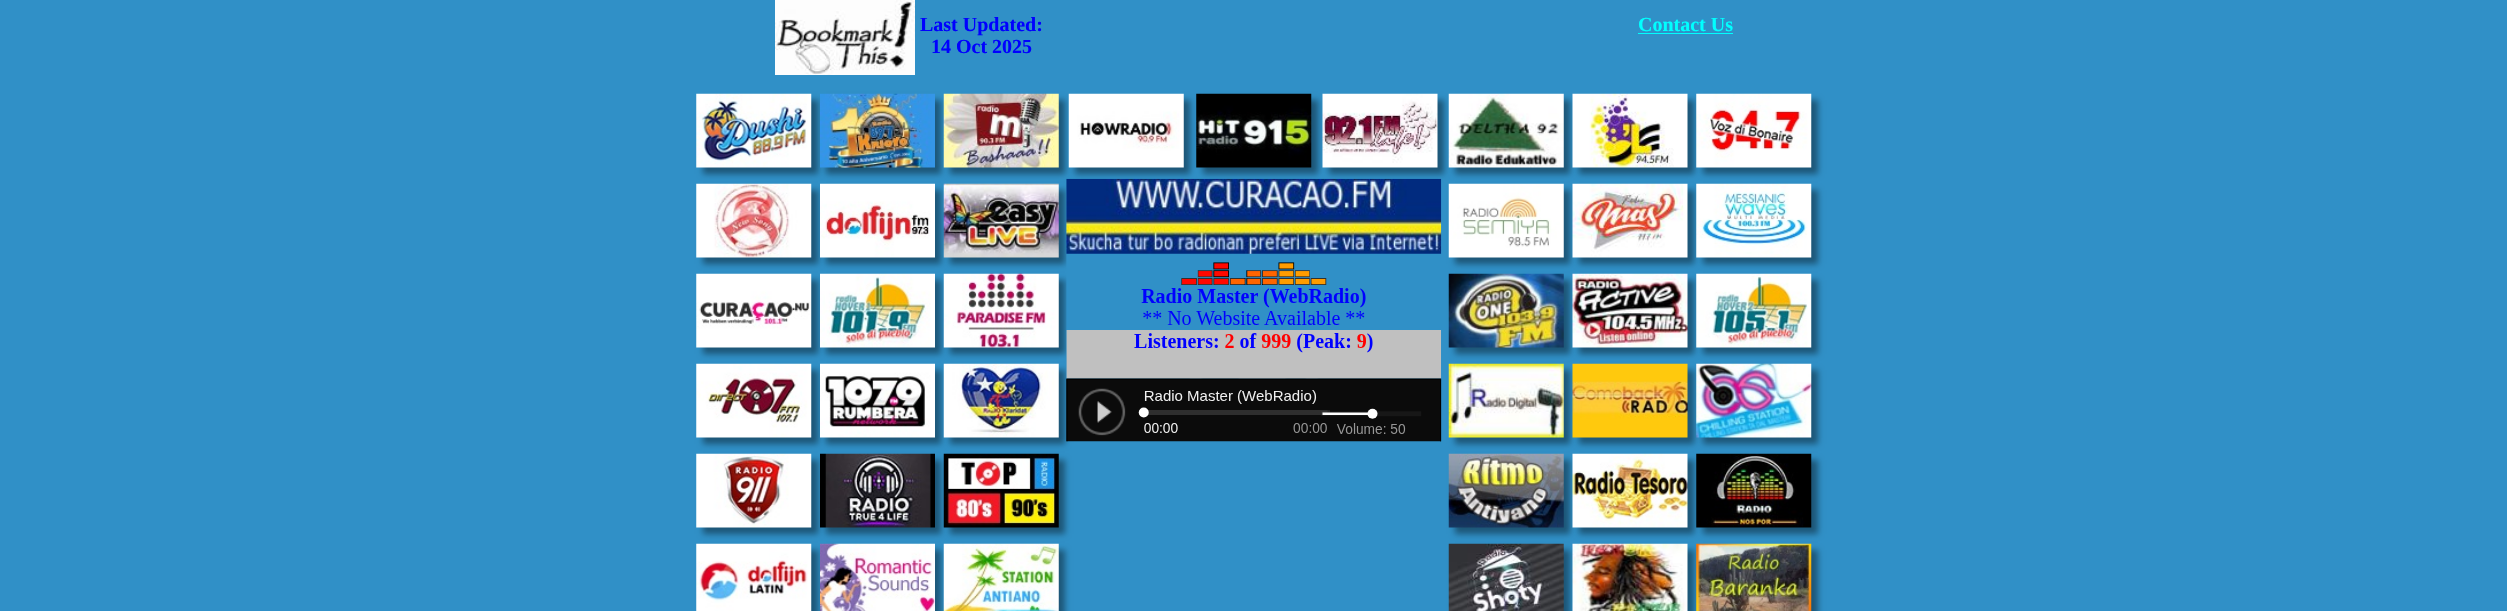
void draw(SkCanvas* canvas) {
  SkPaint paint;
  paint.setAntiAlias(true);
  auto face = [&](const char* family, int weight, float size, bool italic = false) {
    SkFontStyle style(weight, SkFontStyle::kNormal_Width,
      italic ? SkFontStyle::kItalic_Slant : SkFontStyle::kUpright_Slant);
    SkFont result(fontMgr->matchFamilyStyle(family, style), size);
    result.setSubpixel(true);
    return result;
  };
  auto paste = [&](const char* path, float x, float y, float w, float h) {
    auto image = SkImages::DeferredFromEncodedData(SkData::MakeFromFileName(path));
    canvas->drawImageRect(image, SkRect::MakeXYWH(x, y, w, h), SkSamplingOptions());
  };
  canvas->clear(0xff3090c7);
  paste("img/1.png", 775, 0, 140, 75);
  paint.setColor(0xff00ffff);
  canvas->drawRect(SkRect::MakeXYWH(1638, 33, 95, 1), paint);
  paint.setColor(0x66000000);
  paint.setMaskFilter(SkMaskFilter::MakeBlur(kNormal_SkBlurStyle, 3));
  canvas->drawRect(SkRect::MakeXYWH(703, 100, 115, 74), paint);
  paint.setMaskFilter(nullptr);
  paste("img/2.png", 696, 93, 116, 75);
  paint.setMaskFilter(SkMaskFilter::MakeBlur(kNormal_SkBlurStyle, 3));
  canvas->drawRect(SkRect::MakeXYWH(826, 100, 115, 74), paint);
  paint.setMaskFilter(nullptr);
  paste("img/3.png", 820, 93, 115, 75);
  paint.setMaskFilter(SkMaskFilter::MakeBlur(kNormal_SkBlurStyle, 3));
  canvas->drawRect(SkRect::MakeXYWH(950, 100, 115, 74), paint);
  paint.setMaskFilter(nullptr);
  paste("img/4.png", 943, 93, 116, 75);
  paint.setMaskFilter(SkMaskFilter::MakeBlur(kNormal_SkBlurStyle, 3));
  canvas->drawRect(SkRect::MakeXYWH(1075, 100, 115, 74), paint);
  paint.setMaskFilter(nullptr);
  paste("img/5.png", 1068, 93, 116, 75);
  paint.setMaskFilter(SkMaskFilter::MakeBlur(kNormal_SkBlurStyle, 3));
  canvas->drawRect(SkRect::MakeXYWH(1203, 100, 115, 74), paint);
  paint.setMaskFilter(nullptr);
  paste("img/6.png", 1196, 93, 116, 75);
  paint.setMaskFilter(SkMaskFilter::MakeBlur(kNormal_SkBlurStyle, 3));
  canvas->drawRect(SkRect::MakeXYWH(1329, 100, 115, 74), paint);
  paint.setMaskFilter(nullptr);
  paste("img/7.png", 1322, 93, 116, 75);
  paint.setMaskFilter(SkMaskFilter::MakeBlur(kNormal_SkBlurStyle, 3));
  canvas->drawRect(SkRect::MakeXYWH(1455, 100, 115, 74), paint);
  paint.setMaskFilter(nullptr);
  paste("img/8.png", 1448, 93, 116, 75);
  paint.setMaskFilter(SkMaskFilter::MakeBlur(kNormal_SkBlurStyle, 3));
  canvas->drawRect(SkRect::MakeXYWH(1579, 100, 115, 74), paint);
  paint.setMaskFilter(nullptr);
  paste("img/9.png", 1572, 93, 116, 75);
  paint.setMaskFilter(SkMaskFilter::MakeBlur(kNormal_SkBlurStyle, 3));
  canvas->drawRect(SkRect::MakeXYWH(1703, 100, 115, 74), paint);
  paint.setMaskFilter(nullptr);
  paste("img/10.png", 1696, 93, 116, 75);
  paint.setMaskFilter(SkMaskFilter::MakeBlur(kNormal_SkBlurStyle, 3));
  canvas->drawRect(SkRect::MakeXYWH(703, 190, 115, 74), paint);
  paint.setMaskFilter(nullptr);
  paste("img/11.png", 696, 183, 116, 75);
  paint.setMaskFilter(SkMaskFilter::MakeBlur(kNormal_SkBlurStyle, 3));
  canvas->drawRect(SkRect::MakeXYWH(826, 190, 115, 74), paint);
  paint.setMaskFilter(nullptr);
  paste("img/12.png", 820, 183, 115, 75);
  paint.setMaskFilter(SkMaskFilter::MakeBlur(kNormal_SkBlurStyle, 3));
  canvas->drawRect(SkRect::MakeXYWH(950, 190, 115, 74), paint);
  paint.setMaskFilter(nullptr);
  paste("img/13.png", 943, 183, 116, 75);
  paint.setMaskFilter(SkMaskFilter::MakeBlur(kNormal_SkBlurStyle, 3));
  canvas->drawRect(SkRect::MakeXYWH(950, 280, 115, 74), paint);
  paint.setMaskFilter(nullptr);
  paint.setMaskFilter(SkMaskFilter::MakeBlur(kNormal_SkBlurStyle, 3));
  canvas->drawRect(SkRect::MakeXYWH(950, 370, 115, 74), paint);
  paint.setMaskFilter(nullptr);
  paste("img/14.png", 1066, 178, 376, 264);
  paint.setMaskFilter(SkMaskFilter::MakeBlur(kNormal_SkBlurStyle, 3));
  canvas->drawRect(SkRect::MakeXYWH(1455, 190, 115, 74), paint);
  paint.setMaskFilter(nullptr);
  paste("img/15.png", 1448, 183, 116, 75);
  paint.setMaskFilter(SkMaskFilter::MakeBlur(kNormal_SkBlurStyle, 3));
  canvas->drawRect(SkRect::MakeXYWH(1579, 190, 115, 74), paint);
  paint.setMaskFilter(nullptr);
  paste("img/16.png", 1572, 183, 116, 75);
  paint.setMaskFilter(SkMaskFilter::MakeBlur(kNormal_SkBlurStyle, 3));
  canvas->drawRect(SkRect::MakeXYWH(1703, 190, 115, 74), paint);
  paint.setMaskFilter(nullptr);
  paste("img/17.png", 1696, 183, 116, 75);
  paint.setMaskFilter(SkMaskFilter::MakeBlur(kNormal_SkBlurStyle, 3));
  canvas->drawRect(SkRect::MakeXYWH(703, 280, 115, 74), paint);
  paint.setMaskFilter(nullptr);
  paste("img/18.png", 696, 273, 116, 75);
  paint.setMaskFilter(SkMaskFilter::MakeBlur(kNormal_SkBlurStyle, 3));
  canvas->drawRect(SkRect::MakeXYWH(826, 280, 115, 74), paint);
  paint.setMaskFilter(nullptr);
  paste("img/19.png", 820, 273, 115, 75);
  paste("img/20.png", 943, 273, 116, 75);
  paint.setMaskFilter(SkMaskFilter::MakeBlur(kNormal_SkBlurStyle, 3));
  canvas->drawRect(SkRect::MakeXYWH(1455, 280, 115, 74), paint);
  paint.setMaskFilter(nullptr);
  paste("img/21.png", 1448, 273, 116, 75);
  paint.setMaskFilter(SkMaskFilter::MakeBlur(kNormal_SkBlurStyle, 3));
  canvas->drawRect(SkRect::MakeXYWH(1579, 280, 115, 74), paint);
  paint.setMaskFilter(nullptr);
  paste("img/22.png", 1572, 273, 116, 75);
  paint.setMaskFilter(SkMaskFilter::MakeBlur(kNormal_SkBlurStyle, 3));
  canvas->drawRect(SkRect::MakeXYWH(1703, 280, 115, 74), paint);
  paint.setMaskFilter(nullptr);
  paste("img/23.png", 1696, 273, 116, 75);
  paint.setMaskFilter(SkMaskFilter::MakeBlur(kNormal_SkBlurStyle, 3));
  canvas->drawRect(SkRect::MakeXYWH(703, 370, 115, 74), paint);
  paint.setMaskFilter(nullptr);
  paste("img/24.png", 696, 363, 116, 75);
  paint.setMaskFilter(SkMaskFilter::MakeBlur(kNormal_SkBlurStyle, 3));
  canvas->drawRect(SkRect::MakeXYWH(826, 370, 115, 74), paint);
  paint.setMaskFilter(nullptr);
  paste("img/25.png", 820, 363, 115, 75);
  paste("img/26.png", 943, 363, 116, 75);
  paint.setMaskFilter(SkMaskFilter::MakeBlur(kNormal_SkBlurStyle, 3));
  canvas->drawRect(SkRect::MakeXYWH(1455, 370, 115, 74), paint);
  paint.setMaskFilter(nullptr);
  paste("img/27.png", 1448, 363, 116, 75);
  paint.setMaskFilter(SkMaskFilter::MakeBlur(kNormal_SkBlurStyle, 3));
  canvas->drawRect(SkRect::MakeXYWH(1579, 370, 115, 74), paint);
  paint.setMaskFilter(nullptr);
  paste("img/28.png", 1572, 363, 116, 75);
  paint.setMaskFilter(SkMaskFilter::MakeBlur(kNormal_SkBlurStyle, 3));
  canvas->drawRect(SkRect::MakeXYWH(1703, 370, 115, 74), paint);
  paint.setMaskFilter(nullptr);
  paste("img/29.png", 1696, 363, 116, 75);
  paint.setMaskFilter(SkMaskFilter::MakeBlur(kNormal_SkBlurStyle, 3));
  canvas->drawRect(SkRect::MakeXYWH(703, 460, 115, 74), paint);
  paint.setMaskFilter(nullptr);
  paste("img/30.png", 696, 453, 116, 75);
  paint.setMaskFilter(SkMaskFilter::MakeBlur(kNormal_SkBlurStyle, 3));
  canvas->drawRect(SkRect::MakeXYWH(826, 460, 115, 74), paint);
  paint.setMaskFilter(nullptr);
  paste("img/31.png", 820, 453, 115, 75);
  paint.setMaskFilter(SkMaskFilter::MakeBlur(kNormal_SkBlurStyle, 3));
  canvas->drawRect(SkRect::MakeXYWH(950, 460, 115, 74), paint);
  paint.setMaskFilter(nullptr);
  paste("img/32.png", 943, 453, 116, 75);
  paint.setMaskFilter(SkMaskFilter::MakeBlur(kNormal_SkBlurStyle, 3));
  canvas->drawRect(SkRect::MakeXYWH(1455, 460, 115, 74), paint);
  paint.setMaskFilter(nullptr);
  paste("img/33.png", 1448, 453, 116, 75);
  paint.setMaskFilter(SkMaskFilter::MakeBlur(kNormal_SkBlurStyle, 3));
  canvas->drawRect(SkRect::MakeXYWH(1579, 460, 115, 74), paint);
  paint.setMaskFilter(nullptr);
  paste("img/34.png", 1572, 453, 116, 75);
  paint.setMaskFilter(SkMaskFilter::MakeBlur(kNormal_SkBlurStyle, 3));
  canvas->drawRect(SkRect::MakeXYWH(1703, 460, 115, 74), paint);
  paint.setMaskFilter(nullptr);
  paste("img/35.png", 1696, 453, 116, 75);
  paint.setMaskFilter(SkMaskFilter::MakeBlur(kNormal_SkBlurStyle, 3));
  canvas->drawRect(SkRect::MakeXYWH(703, 550, 115, 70), paint);
  paint.setMaskFilter(nullptr);
  paste("img/36.png", 696, 543, 116, 68);
  paint.setMaskFilter(SkMaskFilter::MakeBlur(kNormal_SkBlurStyle, 3));
  canvas->drawRect(SkRect::MakeXYWH(826, 550, 115, 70), paint);
  paint.setMaskFilter(nullptr);
  paste("img/37.png", 820, 543, 115, 68);
  paint.setMaskFilter(SkMaskFilter::MakeBlur(kNormal_SkBlurStyle, 3));
  canvas->drawRect(SkRect::MakeXYWH(950, 550, 115, 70), paint);
  paint.setMaskFilter(nullptr);
  paste("img/38.png", 943, 543, 116, 68);
  paint.setMaskFilter(SkMaskFilter::MakeBlur(kNormal_SkBlurStyle, 3));
  canvas->drawRect(SkRect::MakeXYWH(1455, 550, 115, 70), paint);
  paint.setMaskFilter(nullptr);
  paste("img/39.png", 1448, 543, 116, 68);
  paint.setMaskFilter(SkMaskFilter::MakeBlur(kNormal_SkBlurStyle, 3));
  canvas->drawRect(SkRect::MakeXYWH(1579, 550, 115, 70), paint);
  paint.setMaskFilter(nullptr);
  paste("img/40.png", 1572, 543, 116, 68);
  paint.setMaskFilter(SkMaskFilter::MakeBlur(kNormal_SkBlurStyle, 3));
  canvas->drawRect(SkRect::MakeXYWH(1703, 550, 115, 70), paint);
  paint.setMaskFilter(nullptr);
  paste("img/41.png", 1696, 543, 116, 68);
  auto f0 = face("Liberation Serif", 700, 20);
  paint.setColor(0xff0000ff);
  canvas->drawString("Last Updated:", 920, 31, f0, paint);
  canvas->drawString("14 Oct 2025", 931, 53, f0, paint);
  paint.setColor(0xff00ffff);
  canvas->drawString("Contact Us", 1638, 31, f0, paint);
}
